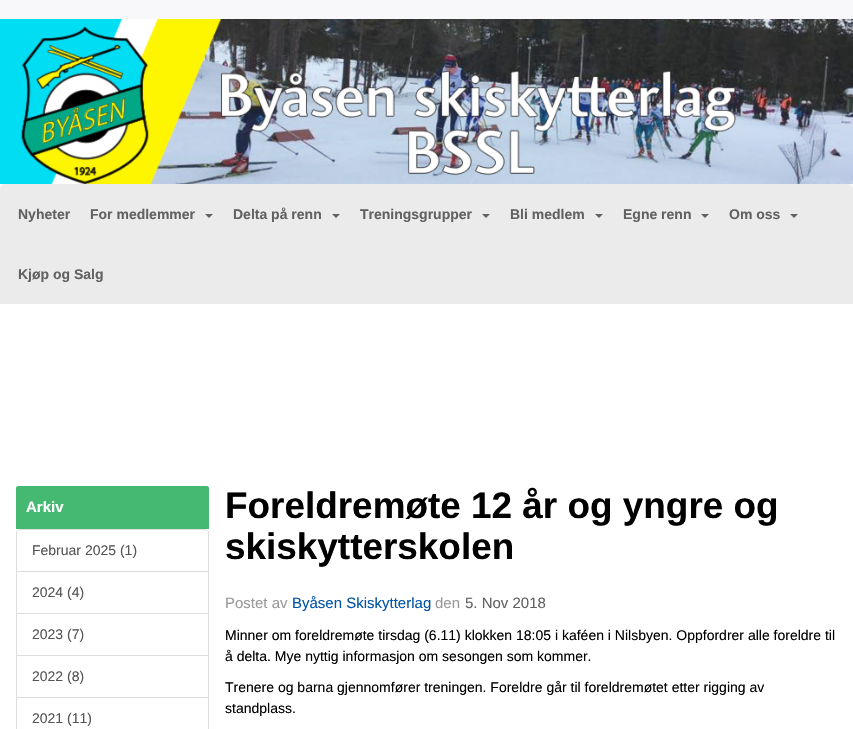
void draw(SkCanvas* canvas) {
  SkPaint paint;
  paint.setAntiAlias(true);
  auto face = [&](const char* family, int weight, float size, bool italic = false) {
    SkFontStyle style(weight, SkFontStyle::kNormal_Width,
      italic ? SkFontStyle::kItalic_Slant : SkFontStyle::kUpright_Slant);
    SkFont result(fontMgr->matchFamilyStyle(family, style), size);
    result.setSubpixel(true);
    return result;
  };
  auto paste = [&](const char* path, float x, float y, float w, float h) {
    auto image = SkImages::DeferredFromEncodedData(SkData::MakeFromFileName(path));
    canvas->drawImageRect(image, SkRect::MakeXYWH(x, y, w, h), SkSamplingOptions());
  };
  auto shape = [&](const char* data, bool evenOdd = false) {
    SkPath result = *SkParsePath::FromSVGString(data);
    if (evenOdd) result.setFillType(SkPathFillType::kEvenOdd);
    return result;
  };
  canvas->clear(0xfff8f8fa);
  paste("img/1.png", 0, 19, 853, 165);
  paint.setColor(0xffebebeb);
  canvas->drawPath(shape("M6 184H847C850.5 184 853 186.5 853 190V304H0V190C0 186.5 2.5 184 6 184Z"), paint);
  paint.setColor(0xff616161);
  canvas->drawPath(shape("M205 214H213L209 218Z"), paint);
  canvas->drawPath(shape("M332 214H340L336 218Z"), paint);
  canvas->drawPath(shape("M482 214H490L486 218Z"), paint);
  canvas->drawPath(shape("M595 214H603L599 218Z"), paint);
  canvas->drawPath(shape("M701 214H709L705 218Z"), paint);
  canvas->drawPath(shape("M790 214H798L794 218Z"), paint);
  paint.setColor(0xffffffff);
  canvas->drawRect(SkRect::MakeXYWH(0, 304, 853, 425), paint);
  paint.setColor(0xff45b871);
  canvas->drawPath(shape("M18 486H207C208 486 209 487 209 488V529H16V488C16 487 17 486 18 486Z"), paint);
  paint.setStroke(true);
  paint.setStrokeWidth(1);
  paint.setColor(0xffdddddd);
  canvas->drawPath(shape("M20 529.5H205C207 529.5 208.5 531 208.5 533V571.5H16.5V533C16.5 531 18 529.5 20 529.5Z"), paint);
  canvas->drawRect(SkRect::MakeXYWH(16.5f, 571.5f, 192, 42), paint);
  canvas->drawRect(SkRect::MakeXYWH(16.5f, 613.5f, 192, 42), paint);
  canvas->drawRect(SkRect::MakeXYWH(16.5f, 655.5f, 192, 42), paint);
  canvas->drawRect(SkRect::MakeXYWH(16.5f, 697.5f, 192, 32), paint);
  auto f0 = face("Liberation Sans", 700, 14);
  paint.setStroke(false);
  paint.setColor(0xff616161);
  {
    const struct { const char* s; float x, y; } items[] = {
      {"Nyheter", 18, 219},
      {"For medlemmer", 90, 219},
      {"Delta på renn", 233, 219},
      {"Treningsgrupper", 360, 219},
      {"Bli medlem", 510, 219},
      {"Egne renn", 623, 219},
      {"Om oss", 729, 219},
      {"Kjøp og Salg", 18, 279},
    };
    for (auto [s, x, y] : items) {
      canvas->drawString(s, x, y, f0, paint);
    }
  }
  auto f1 = face("Liberation Sans", 700, 15);
  paint.setColor(0xffffffff);
  canvas->drawString("Arkiv", 26, 512, f1, paint);
  auto f2 = face("Liberation Sans", 400, 14);
  paint.setColor(0xff555555);
  {
    const struct { const char* s; float x, y; } items[] = {
      {"Februar 2025 (1)", 32, 555},
      {"2024 (4)", 32, 597},
      {"2023 (7)", 32, 639},
      {"2022 (8)", 32, 681},
      {"2021 (11)", 32, 723},
    };
    for (auto [s, x, y] : items) {
      canvas->drawString(s, x, y, f2, paint);
    }
  }
  auto f3 = face("Liberation Sans", 700, 36.9f);
  paint.setColor(0xff000000);
  canvas->drawString("Foreldremøte 12 år og yngre og", 225, 518, f3, paint);
  canvas->drawString("skiskytterskolen", 225, 559, f3, paint);
  auto f4 = face("Liberation Sans", 400, 15);
  paint.setColor(0xff999999);
  canvas->drawString("Postet av", 225, 608, f4, paint);
  paint.setColor(0xff0054a6);
  canvas->drawString("Byåsen Skiskytterlag", 292, 608, f4, paint);
  paint.setColor(0xff999999);
  canvas->drawString("den", 435, 608, f4, paint);
  paint.setColor(0xff616161);
  canvas->drawString("5. Nov 2018", 465, 608, f4, paint);
  paint.setColor(0xff000000);
  {
    const struct { const char* s; float x, y; } items[] = {
      {"Minner om foreldremøte tirsdag (6.11) klokken 18:05 i kaféen i Nilsbyen. Oppfordrer alle foreldre til", 225, 640},
      {"å delta. Mye nyttig informasjon om sesongen som kommer.", 225, 661},
      {"Trenere og barna gjennomfører treningen. Foreldre går til foreldremøtet etter rigging av", 225, 692},
      {"standplass.", 225, 713},
    };
    for (auto [s, x, y] : items) {
      canvas->drawString(s, x, y, f2, paint);
    }
  }
}
